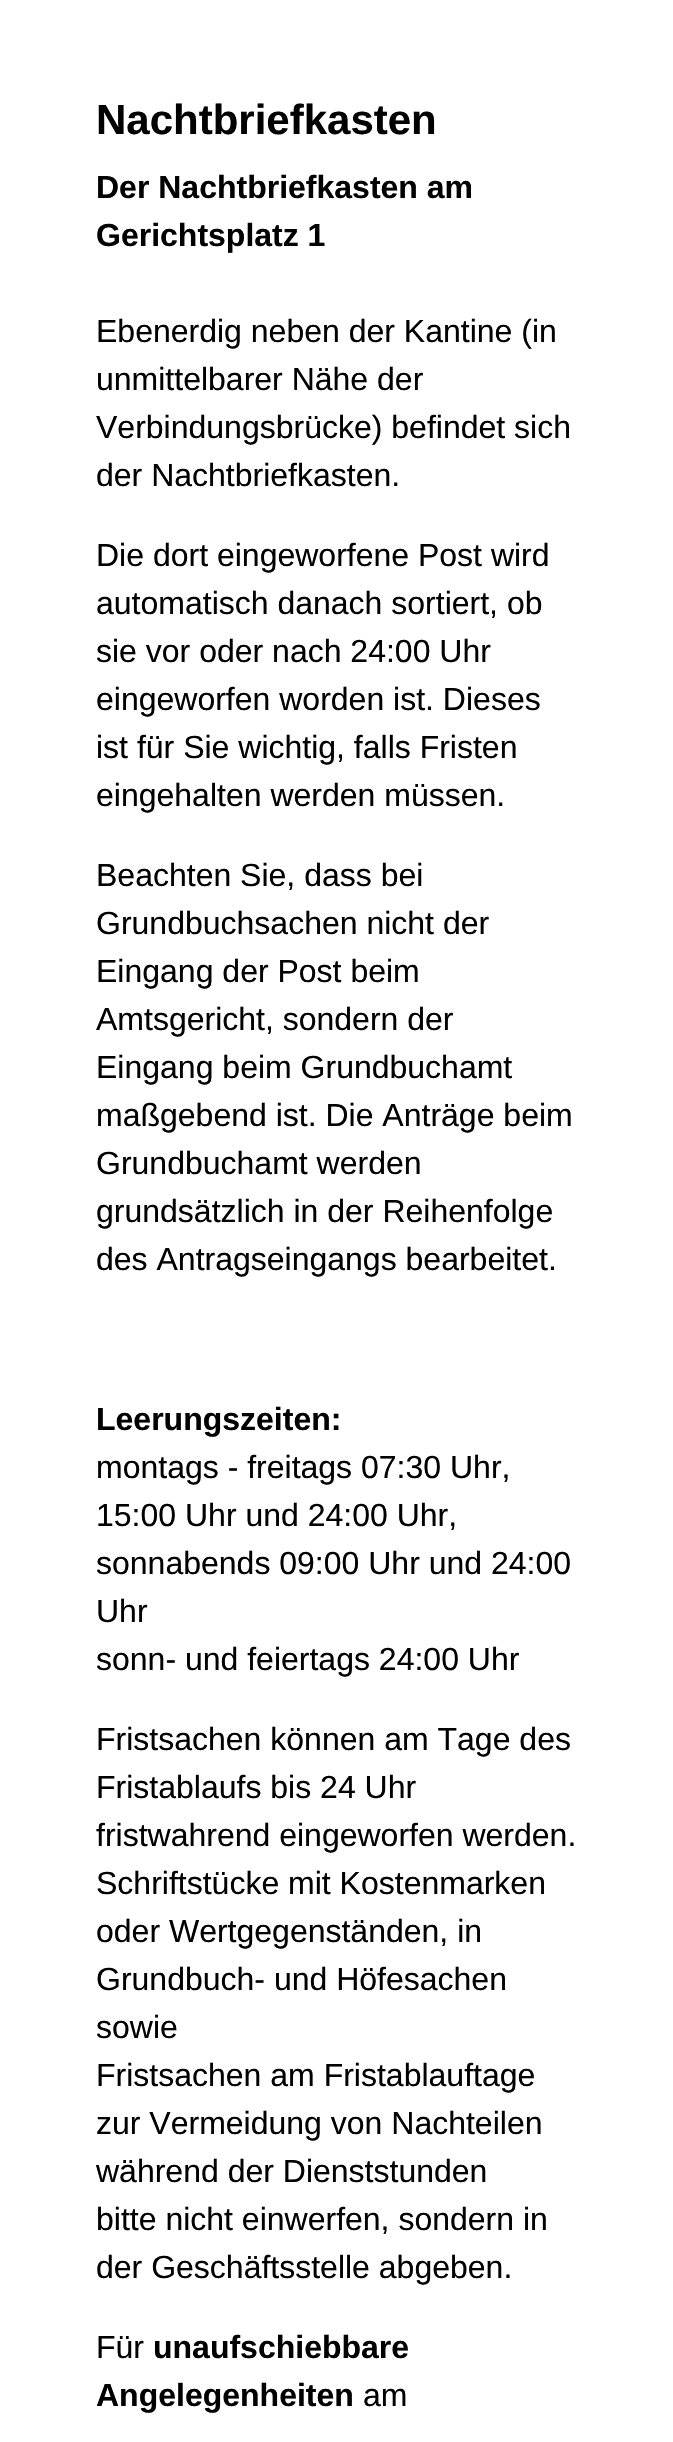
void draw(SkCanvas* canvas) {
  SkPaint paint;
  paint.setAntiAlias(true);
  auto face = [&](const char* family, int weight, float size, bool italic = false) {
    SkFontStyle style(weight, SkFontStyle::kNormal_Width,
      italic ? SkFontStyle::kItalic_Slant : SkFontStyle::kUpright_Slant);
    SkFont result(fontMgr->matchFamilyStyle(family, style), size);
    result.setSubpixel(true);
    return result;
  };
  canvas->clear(0xffffffff);
  auto f0 = face("Liberation Sans", 700, 42);
  paint.setColor(0xff000000);
  canvas->drawString("Nachtbriefkasten", 96, 134, f0, paint);
  auto f1 = face("Liberation Sans", 700, 32);
  canvas->drawString("Der Nachtbriefkasten am", 96, 198, f1, paint);
  canvas->drawString("Gerichtsplatz 1", 96, 246, f1, paint);
  auto f2 = face("Liberation Sans", 400, 32);
  {
    const struct { const char* s; float x, y; } items[] = {
      {"Ebenerdig neben der Kantine (in", 96, 342},
      {"unmittelbarer Nähe der", 96, 390},
      {"Verbindungsbrücke) befindet sich", 96, 438},
      {"der Nachtbriefkasten.", 96, 486},
      {"Die dort eingeworfene Post wird", 96, 566},
      {"automatisch danach sortiert, ob", 96, 614},
      {"sie vor oder nach 24:00 Uhr", 96, 662},
      {"eingeworfen worden ist. Dieses", 96, 710},
      {"ist für Sie wichtig, falls Fristen", 96, 758},
      {"eingehalten werden müssen.", 96, 806},
      {"Beachten Sie, dass bei", 96, 886},
      {"Grundbuchsachen nicht der", 96, 934},
      {"Eingang der Post beim", 96, 982},
      {"Amtsgericht, sondern der", 96, 1030},
      {"Eingang beim Grundbuchamt", 96, 1078},
      {"maßgebend ist. Die Anträge beim", 96, 1126},
      {"Grundbuchamt werden", 96, 1174},
      {"grundsätzlich in der Reihenfolge", 96, 1222},
      {"des Antragseingangs bearbeitet.", 96, 1270},
    };
    for (auto [s, x, y] : items) {
      canvas->drawString(s, x, y, f2, paint);
    }
  }
  canvas->drawString("Leerungszeiten:", 96, 1430, f1, paint);
  {
    const struct { const char* s; float x, y; } items[] = {
      {"montags - freitags 07:30 Uhr,", 96, 1478},
      {"15:00 Uhr und 24:00 Uhr,", 96, 1526},
      {"sonnabends 09:00 Uhr und 24:00", 96, 1574},
      {"Uhr", 96, 1622},
      {"sonn- und feiertags 24:00 Uhr", 96, 1670},
      {"Fristsachen können am Tage des", 96, 1750},
      {"Fristablaufs bis 24 Uhr", 96, 1798},
      {"fristwahrend eingeworfen werden.", 96, 1846},
      {"Schriftstücke mit Kostenmarken", 96, 1894},
      {"oder Wertgegenständen, in", 96, 1942},
      {"Grundbuch- und Höfesachen", 96, 1990},
      {"sowie", 96, 2038},
      {"Fristsachen am Fristablauftage", 96, 2086},
      {"zur Vermeidung von Nachteilen", 96, 2134},
      {"während der Dienststunden", 96, 2182},
      {"bitte nicht einwerfen, sondern in", 96, 2230},
      {"der Geschäftsstelle abgeben.", 96, 2278},
      {"Für", 96, 2358},
    };
    for (auto [s, x, y] : items) {
      canvas->drawString(s, x, y, f2, paint);
    }
  }
  canvas->drawString("unaufschiebbare", 153, 2358, f1, paint);
  canvas->drawString("Angelegenheiten", 96, 2406, f1, paint);
  canvas->drawString("am", 363, 2406, f2, paint);
}
